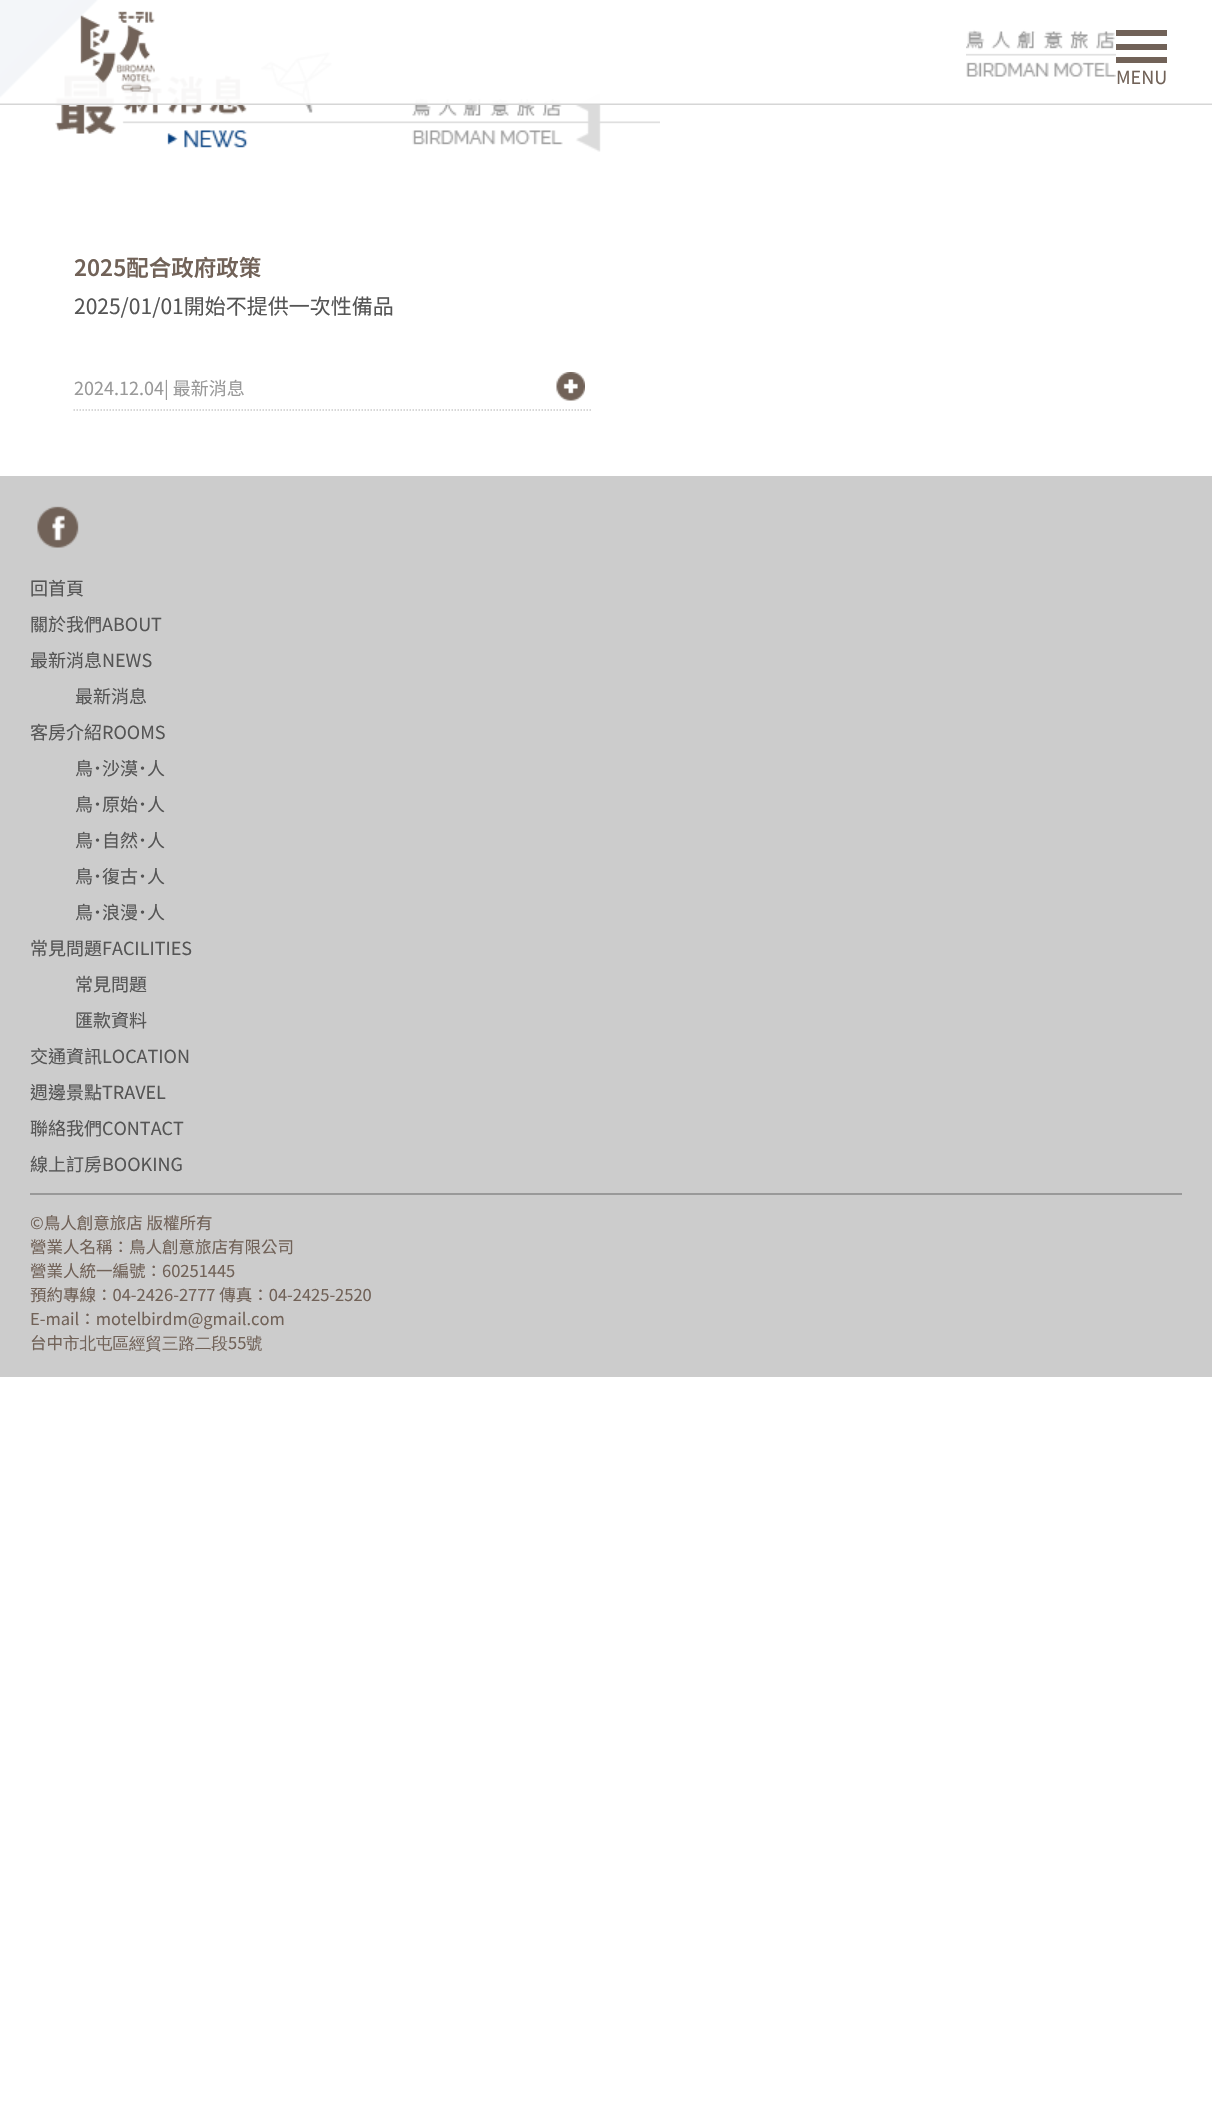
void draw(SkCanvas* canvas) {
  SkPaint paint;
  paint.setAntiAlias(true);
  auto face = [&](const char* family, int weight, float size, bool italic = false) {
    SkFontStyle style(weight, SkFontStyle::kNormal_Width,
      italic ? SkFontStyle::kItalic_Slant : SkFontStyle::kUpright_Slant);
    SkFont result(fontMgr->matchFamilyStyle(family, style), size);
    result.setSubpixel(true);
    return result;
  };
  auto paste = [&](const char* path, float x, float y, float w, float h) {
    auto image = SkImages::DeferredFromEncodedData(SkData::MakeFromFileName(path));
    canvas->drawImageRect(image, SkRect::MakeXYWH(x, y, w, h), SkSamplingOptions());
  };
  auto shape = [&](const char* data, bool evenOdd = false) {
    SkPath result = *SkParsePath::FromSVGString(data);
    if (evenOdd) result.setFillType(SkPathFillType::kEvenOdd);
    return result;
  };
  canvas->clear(0xffffffff);
  paste("img/3.png", 0, 0, 660, 152);
  paste("img/1.png", 0, 0, 1212, 105);
  paste("img/2.png", 80, 11, 75, 81);
  {
    const struct { float x, y, w, h; SkColor color; } items[] = {
      {1116, 44, 51, 6, 0xff716258},
      {1116, 30, 51, 6, 0xff716258},
      {1116, 57, 51, 6, 0xff716258},
    };
    for (auto [x, y, w, h, color] : items) {
      paint.setColor(color);
      canvas->drawRect(SkRect::MakeXYWH(x, y, w, h), paint);
    }
  }
  paint.setStroke(true);
  paint.setStrokeWidth(1.5f);
  paint.setColor(0xffcccccc);
  paint.setPathEffect(SkDashPathEffect::Make({{1.5f, 1.5f}}, 0));
  canvas->drawPath(shape("M73.5 410H592.5"), paint);
  paint.setPathEffect(nullptr);
  paste("img/4.png", 556, 372, 29, 29);
  paint.setStroke(false);
  canvas->drawRect(SkRect::MakeXYWH(0, 476, 1212, 901), paint);
  paste("img/5.png", 37, 506, 42, 42);
  paint.setColor(0xff999999);
  canvas->drawRect(SkRect::MakeXYWH(30, 1193, 1152, 2), paint);
  auto f0 = face("Noto Sans TC", 400, 18);
  paint.setColor(0xff716258);
  canvas->drawString("MENU", 1116, 84, f0, paint);
  auto f1 = face("Noto Sans TC", 600, 22.5f);
  canvas->drawString("2025配合政府政策", 74, 276, f1, paint);
  auto f2 = face("Noto Sans TC", 400, 21);
  paint.setColor(0xff555555);
  canvas->drawString("2025/01/01開始不提供一次性備品", 74, 314, f2, paint);
  paint.setColor(0xff999999);
  canvas->drawString("2024.12.04| 最新消息", 74, 395, f0, paint);
  paint.setColor(0xff555555);
  {
    const struct { const char* s; float x, y; } items[] = {
      {"回首頁", 30, 595},
      {"關於我們ABOUT", 30, 631},
      {"最新消息NEWS", 30, 667},
      {"最新消息", 75, 703},
      {"客房介紹ROOMS", 30, 739},
      {"鳥˙沙漠˙人", 75, 775},
      {"鳥˙原始˙人", 75, 811},
      {"鳥˙自然˙人", 75, 847},
      {"鳥˙復古˙人", 75, 883},
      {"鳥˙浪漫˙人", 75, 919},
      {"常見問題FACILITIES", 30, 955},
      {"常見問題", 75, 991},
      {"匯款資料", 75, 1027},
      {"交通資訊LOCATION", 30, 1063},
      {"週邊景點TRAVEL", 30, 1099},
      {"聯絡我們CONTACT", 30, 1135},
      {"線上訂房BOOKING", 30, 1171},
    };
    for (auto [s, x, y] : items) {
      canvas->drawString(s, x, y, f0, paint);
    }
  }
  auto f3 = face("Noto Sans TC", 400, 16.5f);
  paint.setColor(0xff716258);
  {
    const struct { const char* s; float x, y; } items[] = {
      {"©鳥人創意旅店 版權所有", 30, 1229},
      {"營業人名稱：鳥人創意旅店有限公司", 30, 1253},
      {"營業人統一編號：60251445", 30, 1277},
      {"預約專線：04-2426-2777 傳真：04-2425-2520", 30, 1301},
      {"E-mail：motelbirdm@gmail.com", 30, 1325},
      {"台中", 30, 1349},
    };
    for (auto [s, x, y] : items) {
      canvas->drawString(s, x, y, f3, paint);
    }
  }
  auto f4 = face("WenQuanYi Zen Hei", 500, 16.5f);
  canvas->drawString("市北屯區經貿三路二段", 63, 1349, f4, paint);
  canvas->drawString("55", 228, 1349, f3, paint);
  canvas->drawString("號", 246, 1349, f4, paint);
}
